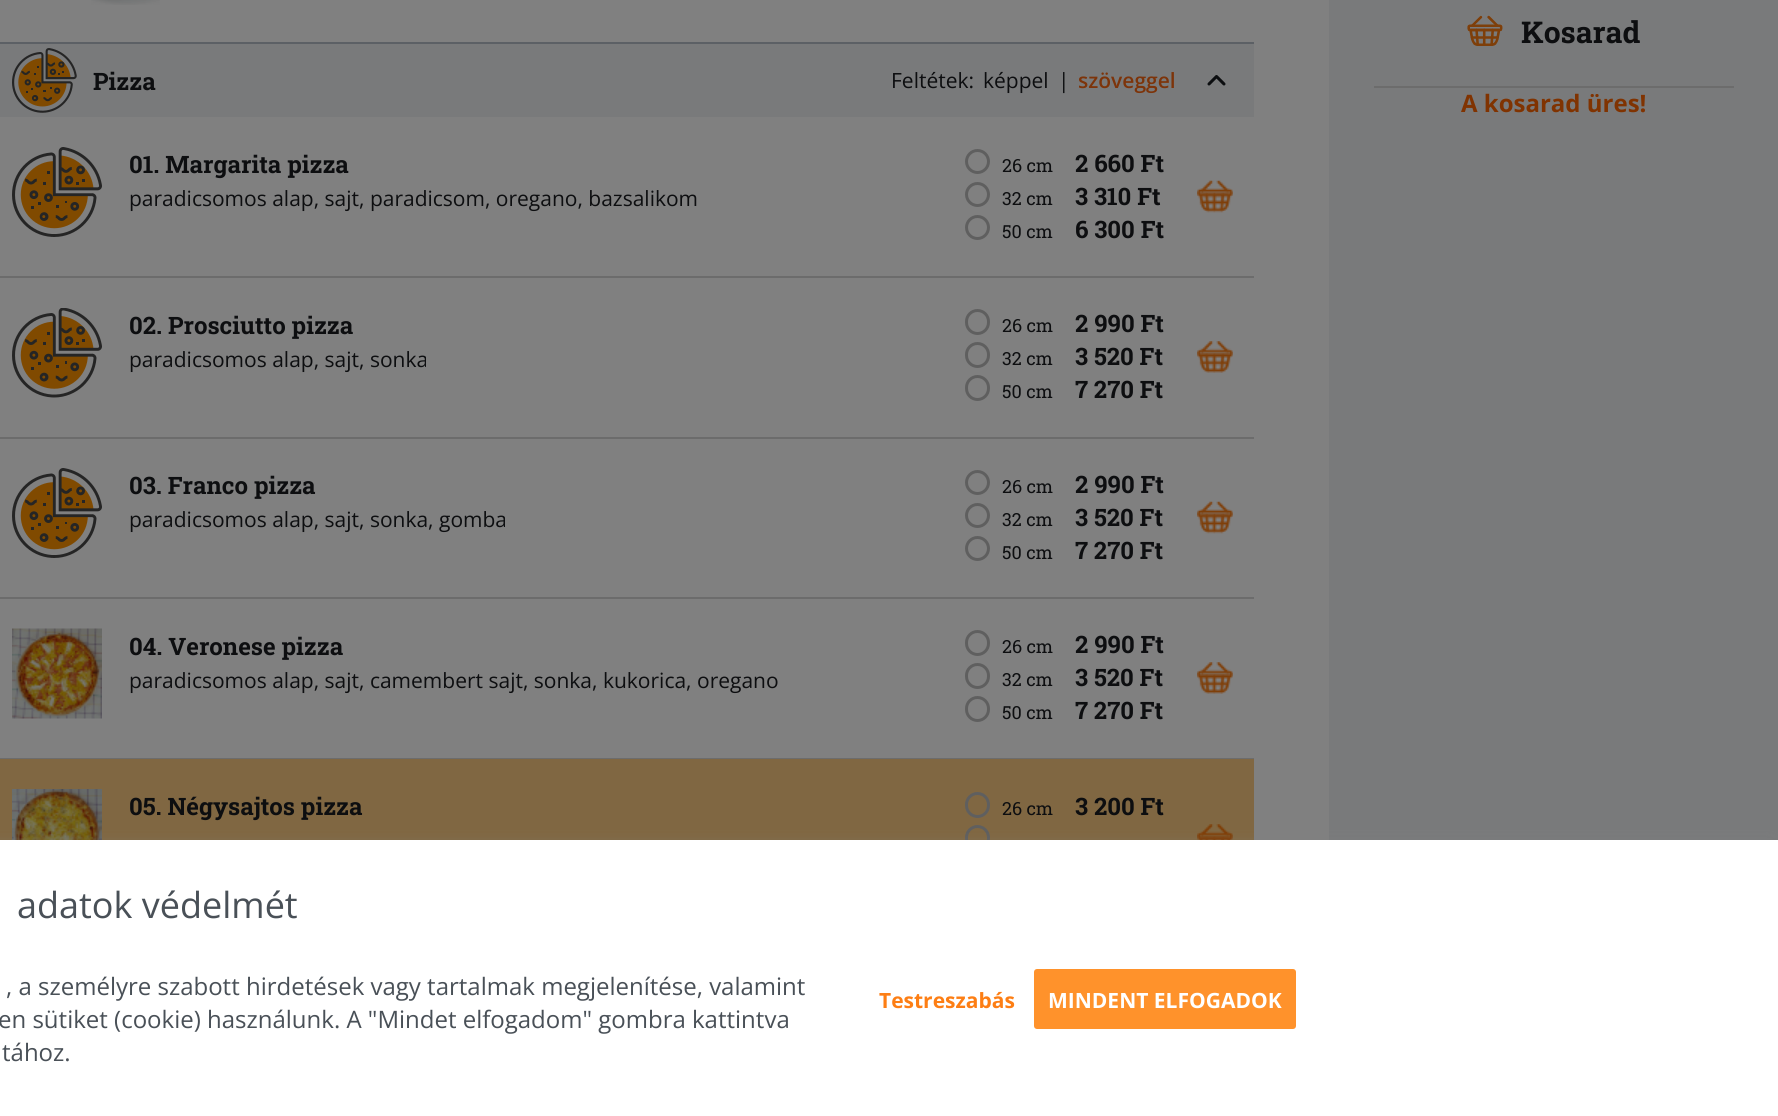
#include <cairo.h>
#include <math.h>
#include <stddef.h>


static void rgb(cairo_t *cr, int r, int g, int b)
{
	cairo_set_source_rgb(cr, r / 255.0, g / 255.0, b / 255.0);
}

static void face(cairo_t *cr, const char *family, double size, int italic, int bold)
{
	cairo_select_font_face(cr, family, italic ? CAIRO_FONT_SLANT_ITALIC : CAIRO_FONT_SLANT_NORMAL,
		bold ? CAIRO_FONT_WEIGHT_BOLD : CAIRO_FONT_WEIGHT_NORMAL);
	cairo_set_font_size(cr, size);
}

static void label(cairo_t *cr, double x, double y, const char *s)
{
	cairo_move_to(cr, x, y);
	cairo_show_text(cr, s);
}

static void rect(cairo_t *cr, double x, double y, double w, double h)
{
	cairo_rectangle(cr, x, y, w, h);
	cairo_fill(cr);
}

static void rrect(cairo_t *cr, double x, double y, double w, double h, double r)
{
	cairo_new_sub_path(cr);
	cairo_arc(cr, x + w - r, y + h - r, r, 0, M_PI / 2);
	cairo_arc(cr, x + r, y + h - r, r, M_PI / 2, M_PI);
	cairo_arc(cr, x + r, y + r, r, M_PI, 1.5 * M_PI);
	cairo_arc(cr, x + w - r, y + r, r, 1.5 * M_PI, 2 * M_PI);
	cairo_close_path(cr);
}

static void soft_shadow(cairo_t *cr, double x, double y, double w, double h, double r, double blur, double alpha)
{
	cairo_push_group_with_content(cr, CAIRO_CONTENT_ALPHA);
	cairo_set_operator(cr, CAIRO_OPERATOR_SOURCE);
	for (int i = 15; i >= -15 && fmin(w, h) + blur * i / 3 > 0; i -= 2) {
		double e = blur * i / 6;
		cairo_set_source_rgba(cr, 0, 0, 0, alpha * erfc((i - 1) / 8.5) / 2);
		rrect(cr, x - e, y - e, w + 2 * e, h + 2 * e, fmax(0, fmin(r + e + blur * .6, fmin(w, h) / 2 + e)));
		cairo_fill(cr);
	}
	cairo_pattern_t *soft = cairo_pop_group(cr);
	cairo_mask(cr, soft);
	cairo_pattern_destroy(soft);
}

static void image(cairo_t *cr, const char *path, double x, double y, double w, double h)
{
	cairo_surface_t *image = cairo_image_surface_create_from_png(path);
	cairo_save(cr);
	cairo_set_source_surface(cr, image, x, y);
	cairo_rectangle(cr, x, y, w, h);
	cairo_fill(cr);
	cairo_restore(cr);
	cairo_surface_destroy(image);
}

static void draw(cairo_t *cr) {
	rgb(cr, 128, 128, 128);
	cairo_paint(cr);
	image(cr, "image0.png", 91, 0, 69, 5);
	rgb(cr, 121, 122, 123);
	rect(cr, 0, 44, 1254, 73);
	rgb(cr, 92, 96, 101);
	rect(cr, 0, 42, 1254, 2);
	image(cr, "image1.png", 12, 48, 65, 65);
	face(cr, "Roboto Slab", 24, 0, 1);
	rgb(cr, 13, 14, 16);
	label(cr, 93, 90, "Pizza");
	face(cr, "Open Sans", 21, 0, 0);
	label(cr, 891, 88, "Feltétek:");
	label(cr, 983, 88, "képpel");
	label(cr, 1058, 88, "|");
	face(cr, "Open Sans SemiBold", 21, 0, 0);
	rgb(cr, 125, 52, 10);
	label(cr, 1078, 88, "szöveggel");
	image(cr, "image2.png", 1207, 75, 19, 11);
	rgb(cr, 108, 108, 108);
	rect(cr, 0, 276, 1254, 2);
	image(cr, "image3.png", 12, 147, 90, 90);
	face(cr, "Roboto Slab", 24, 0, 1);
	rgb(cr, 13, 14, 16);
	label(cr, 129, 173, "01. Margarita pizza");
	face(cr, "Open Sans", 21, 0, 0);
	label(cr, 129, 206, "paradicsomos alap, sajt, paradicsom, oregano, bazsalikom");
	cairo_new_path(cr);
	cairo_arc(cr, 977.5, 161.5, 11, 0, 2 * M_PI);
	rgb(cr, 95, 95, 95);
	cairo_set_line_width(cr, 3);
	cairo_stroke(cr);
	face(cr, "Roboto Slab", 18, 0, 0);
	rgb(cr, 13, 14, 16);
	label(cr, 1002, 172, "26 cm");
	face(cr, "Roboto Slab", 24, 0, 1);
	label(cr, 1075, 172, "2 660 Ft");
	cairo_new_path(cr);
	cairo_arc(cr, 977.5, 194.5, 11, 0, 2 * M_PI);
	rgb(cr, 95, 95, 95);
	cairo_stroke(cr);
	face(cr, "Roboto Slab", 18, 0, 0);
	rgb(cr, 13, 14, 16);
	label(cr, 1002, 205, "32 cm");
	face(cr, "Roboto Slab", 24, 0, 1);
	label(cr, 1075, 205, "3 310 Ft");
	cairo_new_path(cr);
	cairo_arc(cr, 977.5, 227.5, 11, 0, 2 * M_PI);
	rgb(cr, 95, 95, 95);
	cairo_stroke(cr);
	face(cr, "Roboto Slab", 18, 0, 0);
	rgb(cr, 13, 14, 16);
	label(cr, 1002, 238, "50 cm");
	face(cr, "Roboto Slab", 24, 0, 1);
	label(cr, 1075, 238, "6 300 Ft");
	image(cr, "image4.png", 1197, 180, 36, 33);
	rgb(cr, 108, 108, 108);
	rect(cr, 0, 437, 1254, 2);
	image(cr, "image5.png", 12, 308, 90, 90);
	rgb(cr, 13, 14, 16);
	label(cr, 129, 334, "02. Prosciutto pizza");
	face(cr, "Open Sans", 21, 0, 0);
	label(cr, 129, 367, "paradicsomos alap, sajt, sonka");
	rrect(cr, 966.5, 310.5, 22, 23, 11);
	rgb(cr, 95, 95, 95);
	cairo_stroke(cr);
	face(cr, "Roboto Slab", 18, 0, 0);
	rgb(cr, 13, 14, 16);
	label(cr, 1002, 332, "26 cm");
	face(cr, "Roboto Slab", 24, 0, 1);
	label(cr, 1075, 332, "2 990 Ft");
	rrect(cr, 966.5, 343.5, 22, 23, 11);
	rgb(cr, 95, 95, 95);
	cairo_stroke(cr);
	face(cr, "Roboto Slab", 18, 0, 0);
	rgb(cr, 13, 14, 16);
	label(cr, 1002, 365, "32 cm");
	face(cr, "Roboto Slab", 24, 0, 1);
	label(cr, 1075, 365, "3 520 Ft");
	rrect(cr, 966.5, 376.5, 22, 23, 11);
	rgb(cr, 95, 95, 95);
	cairo_stroke(cr);
	face(cr, "Roboto Slab", 18, 0, 0);
	rgb(cr, 13, 14, 16);
	label(cr, 1002, 398, "50 cm");
	face(cr, "Roboto Slab", 24, 0, 1);
	label(cr, 1075, 398, "7 270 Ft");
	image(cr, "image6.png", 1197, 341, 36, 32);
	rgb(cr, 108, 108, 108);
	rect(cr, 0, 597, 1254, 2);
	image(cr, "image3.png", 12, 468, 90, 90);
	rgb(cr, 13, 14, 16);
	label(cr, 129, 494, "03. Franco pizza");
	face(cr, "Open Sans", 21, 0, 0);
	label(cr, 129, 527, "paradicsomos alap, sajt, sonka, gomba");
	cairo_new_path(cr);
	cairo_arc(cr, 977.5, 482.5, 11, 0, 2 * M_PI);
	rgb(cr, 95, 95, 95);
	cairo_stroke(cr);
	face(cr, "Roboto Slab", 18, 0, 0);
	rgb(cr, 13, 14, 16);
	label(cr, 1002, 493, "26 cm");
	face(cr, "Roboto Slab", 24, 0, 1);
	label(cr, 1075, 493, "2 990 Ft");
	cairo_new_path(cr);
	cairo_arc(cr, 977.5, 515.5, 11, 0, 2 * M_PI);
	rgb(cr, 95, 95, 95);
	cairo_stroke(cr);
	face(cr, "Roboto Slab", 18, 0, 0);
	rgb(cr, 13, 14, 16);
	label(cr, 1002, 526, "32 cm");
	face(cr, "Roboto Slab", 24, 0, 1);
	label(cr, 1075, 526, "3 520 Ft");
	cairo_new_path(cr);
	cairo_arc(cr, 977.5, 548.5, 11, 0, 2 * M_PI);
	rgb(cr, 95, 95, 95);
	cairo_stroke(cr);
	face(cr, "Roboto Slab", 18, 0, 0);
	rgb(cr, 13, 14, 16);
	label(cr, 1002, 559, "50 cm");
	face(cr, "Roboto Slab", 24, 0, 1);
	label(cr, 1075, 559, "7 270 Ft");
	image(cr, "image4.png", 1197, 501, 36, 33);
	rgb(cr, 108, 108, 108);
	rect(cr, 0, 758, 1254, 1);
	image(cr, "image7.png", 12, 628, 90, 91);
	rgb(cr, 13, 14, 16);
	label(cr, 129, 655, "04. Veronese pizza");
	face(cr, "Open Sans", 21, 0, 0);
	label(cr, 129, 688, "paradicsomos alap, sajt, camembert sajt, sonka, kukorica, oregano");
	rrect(cr, 966.5, 631.5, 22, 23, 11);
	rgb(cr, 95, 95, 95);
	cairo_stroke(cr);
	face(cr, "Roboto Slab", 18, 0, 0);
	rgb(cr, 13, 14, 16);
	label(cr, 1002, 653, "26 cm");
	face(cr, "Roboto Slab", 24, 0, 1);
	label(cr, 1075, 653, "2 990 Ft");
	rrect(cr, 966.5, 664.5, 22, 23, 11);
	rgb(cr, 95, 95, 95);
	cairo_stroke(cr);
	face(cr, "Roboto Slab", 18, 0, 0);
	rgb(cr, 13, 14, 16);
	label(cr, 1002, 686, "32 cm");
	face(cr, "Roboto Slab", 24, 0, 1);
	label(cr, 1075, 686, "3 520 Ft");
	rrect(cr, 966.5, 697.5, 22, 23, 11);
	rgb(cr, 95, 95, 95);
	cairo_stroke(cr);
	face(cr, "Roboto Slab", 18, 0, 0);
	rgb(cr, 13, 14, 16);
	label(cr, 1002, 719, "50 cm");
	face(cr, "Roboto Slab", 24, 0, 1);
	label(cr, 1075, 719, "7 270 Ft");
	image(cr, "image6.png", 1197, 662, 36, 32);
	rgb(cr, 128, 103, 66);
	rect(cr, 0, 759, 1254, 81);
	image(cr, "image8.png", 12, 789, 90, 51);
	rgb(cr, 13, 14, 16);
	label(cr, 129, 815, "05. Négysajtos pizza");
	rrect(cr, 966.5, 793.5, 22, 23, 11);
	rgb(cr, 95, 95, 95);
	cairo_stroke(cr);
	face(cr, "Roboto Slab", 18, 0, 0);
	rgb(cr, 13, 14, 16);
	label(cr, 1002, 815, "26 cm");
	face(cr, "Roboto Slab", 24, 0, 1);
	label(cr, 1075, 815, "3 200 Ft");
	rrect(cr, 966.5, 826.5, 22, 23, 11);
	rgb(cr, 95, 95, 95);
	cairo_stroke(cr);
	image(cr, "image9.png", 1197, 824, 36, 16);
	rgb(cr, 121, 122, 123);
	rect(cr, 1329, 0, 449, 840);
	rgb(cr, 108, 108, 108);
	rect(cr, 1374, 86, 360, 2);
	image(cr, "image10.png", 1467, 15, 36, 31);
	face(cr, "Roboto Slab", 30, 0, 1);
	rgb(cr, 13, 14, 16);
	label(cr, 1521, 43, "Kosarad");
	face(cr, "Open Sans", 24, 0, 1);
	rgb(cr, 128, 51, 1);
	label(cr, 1461, 112, "A kosarad üres!");
	rgb(cr, 136, 136, 136);
	soft_shadow(cr, -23, 849, 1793, 258, 0, 7.5, 1);
	rgb(cr, 255, 255, 255);
	rect(cr, 0, 840, 1778, 276);
	face(cr, "Open Sans", 36, 0, 0);
	rgb(cr, 73, 80, 87);
	label(cr, 17, 918, "adatok védelmét");
	face(cr, "Open Sans", 24, 0, 0);
	label(cr, 6, 995, ", a személyre szabott hirdetések vagy tartalmak megjelenítése, valamint");
	label(cr, -2, 1028, "en sütiket (cookie) használunk. A \"Mindet elfogadom\" gombra kattintva");
	label(cr, 2, 1061, "tához.");
	face(cr, "Open Sans", 21, 0, 1);
	rgb(cr, 253, 126, 20);
	label(cr, 879, 1008, "Testreszabás");
	rgb(cr, 255, 146, 43);
	rrect(cr, 1035.5, 970.5, 259, 57, 1.5);
	cairo_fill_preserve(cr);
	cairo_stroke(cr);
	rgb(cr, 255, 255, 255);
	label(cr, 1048, 1008, "MINDENT ELFOGADOK");
}

int main(void) {
	cairo_surface_t *surface = cairo_image_surface_create(CAIRO_FORMAT_RGB24, 1778, 1116);
	cairo_t *cr = cairo_create(surface);
	cairo_font_options_t *options = cairo_font_options_create();
	cairo_font_options_set_hint_metrics(options, CAIRO_HINT_METRICS_OFF);
	cairo_font_options_set_hint_style(options, CAIRO_HINT_STYLE_NONE);
	cairo_set_font_options(cr, options);
	cairo_set_miter_limit(cr, 4);
	draw(cr);
	cairo_surface_write_to_png(surface, "render.png");
	cairo_font_options_destroy(options);
	cairo_destroy(cr);
	cairo_surface_destroy(surface);
	return 0;
}
